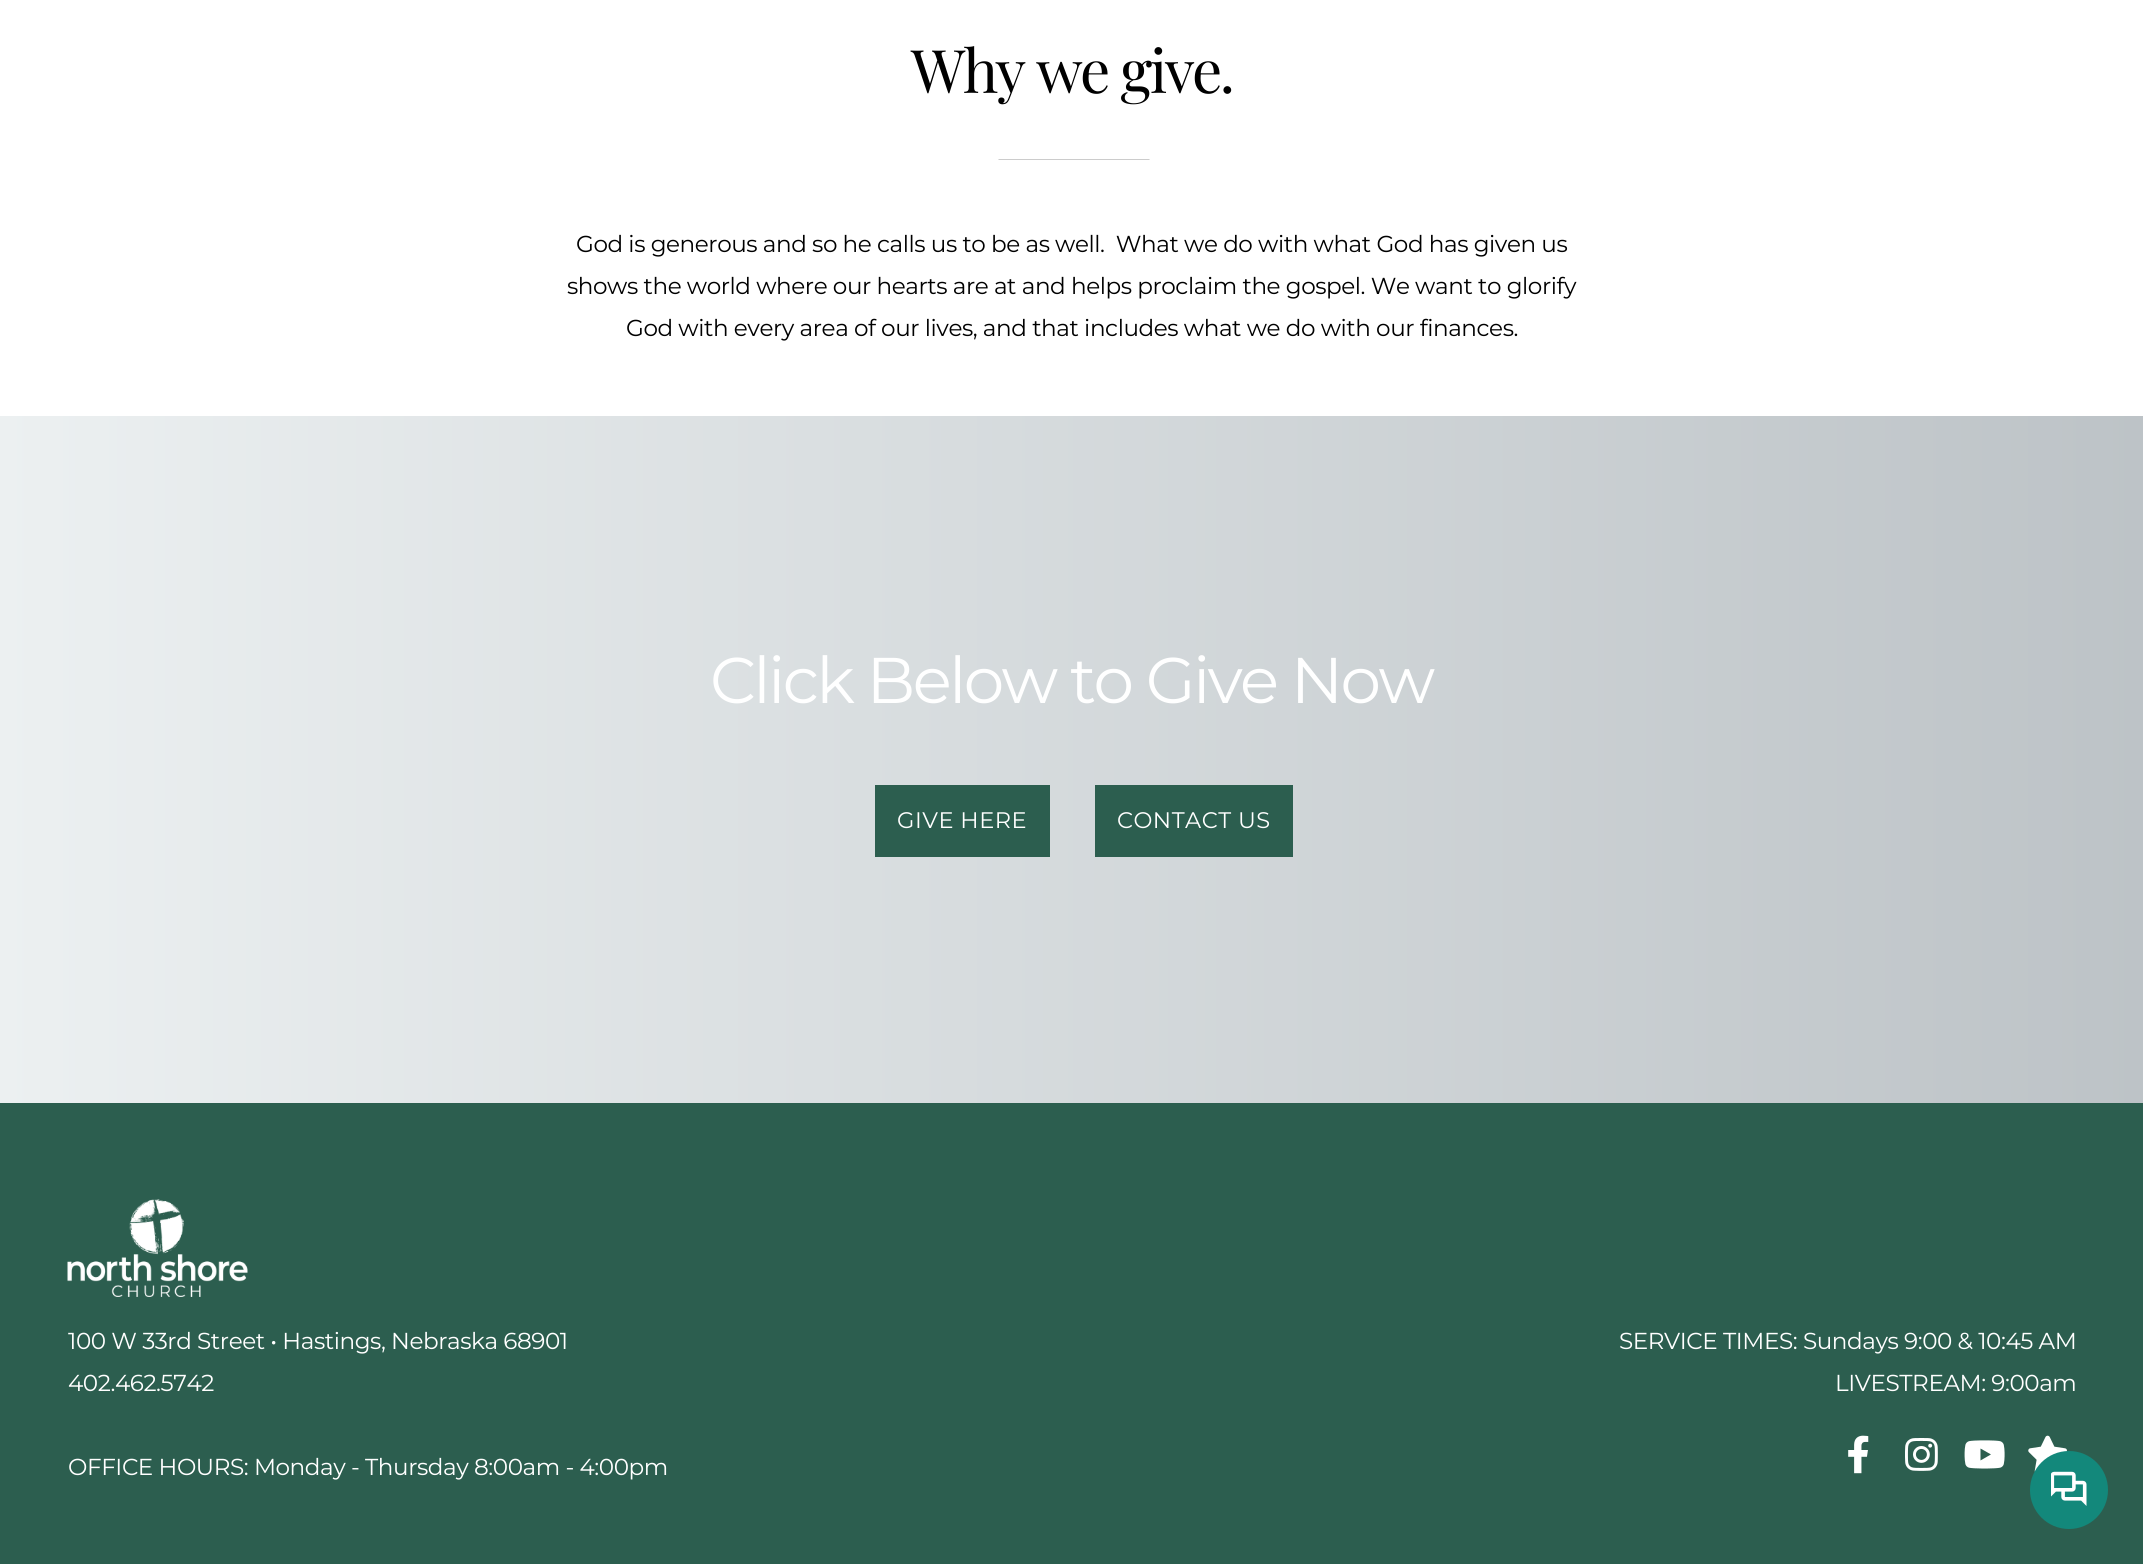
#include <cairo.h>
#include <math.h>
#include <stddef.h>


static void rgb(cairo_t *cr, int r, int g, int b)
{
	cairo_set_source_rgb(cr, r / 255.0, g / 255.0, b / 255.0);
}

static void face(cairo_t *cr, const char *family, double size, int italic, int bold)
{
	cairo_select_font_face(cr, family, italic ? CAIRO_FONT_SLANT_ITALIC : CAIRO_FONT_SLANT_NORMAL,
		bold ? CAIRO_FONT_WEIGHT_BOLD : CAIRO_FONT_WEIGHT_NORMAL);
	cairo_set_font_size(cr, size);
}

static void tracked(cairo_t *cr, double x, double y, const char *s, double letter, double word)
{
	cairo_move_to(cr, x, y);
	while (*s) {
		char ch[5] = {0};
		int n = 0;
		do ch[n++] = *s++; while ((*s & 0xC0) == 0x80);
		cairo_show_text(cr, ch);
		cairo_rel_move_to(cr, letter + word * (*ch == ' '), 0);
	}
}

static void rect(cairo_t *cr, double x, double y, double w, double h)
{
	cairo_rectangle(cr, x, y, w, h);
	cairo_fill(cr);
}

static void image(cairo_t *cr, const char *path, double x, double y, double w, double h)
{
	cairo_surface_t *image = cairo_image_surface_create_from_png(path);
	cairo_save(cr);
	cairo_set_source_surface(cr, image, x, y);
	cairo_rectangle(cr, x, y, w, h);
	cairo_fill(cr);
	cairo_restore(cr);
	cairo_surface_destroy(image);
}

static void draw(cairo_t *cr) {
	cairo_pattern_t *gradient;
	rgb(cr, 255, 255, 255);
	cairo_paint(cr);
	face(cr, "Playfair Display", 60, 0, 0);
	rgb(cr, 0, 0, 0);
	tracked(cr, 911, 93, "Why we give.", -2.4, 0);
	rgb(cr, 204, 204, 204);
	cairo_new_path(cr);
	cairo_move_to(cr, 1150, 160);
	cairo_line_to(cr, 998, 160);
	cairo_line_to(cr, 999, 159);
	cairo_line_to(cr, 1149, 159);
	cairo_close_path(cr);
	cairo_fill(cr);
	face(cr, "Montserrat", 23.1, 0, 0);
	rgb(cr, 0, 0, 0);
	tracked(cr, 576, 252, "God is generous and so he calls us to be as well.  What we do with what God has given us", -0.42, 0);
	tracked(cr, 567, 294, "shows the world where our hearts are at and helps proclaim the gospel. We want to glorify", -0.42, 0);
	tracked(cr, 626, 336, "God with every area of our lives, and that includes what we do with our finances.", -0.42, 0);
	gradient = cairo_pattern_create_linear(0, 760, 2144, 760);
	cairo_pattern_add_color_stop_rgba(gradient, 0, 0.925, 0.941, 0.945, 1);
	cairo_pattern_add_color_stop_rgba(gradient, 1, 0.741, 0.765, 0.78, 1);
	cairo_set_source(cr, gradient);
	cairo_pattern_destroy(gradient);
	rect(cr, 0, 416, 2143, 687);
	face(cr, "Montserrat", 64.5, 0, 0);
	rgb(cr, 255, 255, 255);
	tracked(cr, 710, 703, "Click Below to Give Now", -2.6, 0);
	rgb(cr, 44, 94, 79);
	rect(cr, 875, 785, 175, 72);
	face(cr, "Montserrat", 22.5, 0, 0);
	rgb(cr, 255, 255, 255);
	tracked(cr, 897, 828, "GIVE HERE", 0.5, 0);
	rgb(cr, 44, 94, 79);
	rect(cr, 1095, 785, 198, 72);
	rgb(cr, 255, 255, 255);
	tracked(cr, 1117, 828, "CONTACT US", 0.5, 0);
	rgb(cr, 44, 94, 79);
	rect(cr, 0, 1103, 2143, 461);
	image(cr, "image0.png", 67, 1199, 181, 98);
	face(cr, "Montserrat", 23.1, 0, 0);
	rgb(cr, 255, 255, 255);
	tracked(cr, 68, 1349, "100 W 33rd Street • Hastings, Nebraska 68901", -0.42, 0);
	tracked(cr, 68, 1391, "402.462.5742", -0.42, 0);
	tracked(cr, 68, 1475, "OFFICE HOURS: Monday - Thursday 8:00am - 4:00pm", -0.42, 0);
	tracked(cr, 1619, 1349, "SERVICE TIMES: Sundays 9:00 & 10:45 AM", -0.42, 0);
	tracked(cr, 1835, 1391, "LIVESTREAM: 9:00am", -0.42, 0);
	image(cr, "image1.png", 1848, 1435, 21, 39);
	image(cr, "image2.png", 1905, 1438, 33, 33);
	image(cr, "image3.png", 1964, 1440, 41, 29);
	image(cr, "image4.png", 2028, 1435, 39, 37);
	rgb(cr, 19, 136, 123);
	cairo_arc(cr, 2069, 1490, 39, 0, 2 * M_PI);
	cairo_fill(cr);
	image(cr, "image5.png", 2051, 1471, 36, 35);
}

int main(void) {
	cairo_surface_t *surface = cairo_image_surface_create(CAIRO_FORMAT_RGB24, 2143, 1564);
	cairo_t *cr = cairo_create(surface);
	cairo_font_options_t *options = cairo_font_options_create();
	cairo_font_options_set_hint_metrics(options, CAIRO_HINT_METRICS_OFF);
	cairo_font_options_set_hint_style(options, CAIRO_HINT_STYLE_NONE);
	cairo_set_font_options(cr, options);
	cairo_set_miter_limit(cr, 4);
	draw(cr);
	cairo_surface_write_to_png(surface, "render.png");
	cairo_font_options_destroy(options);
	cairo_destroy(cr);
	cairo_surface_destroy(surface);
	return 0;
}
